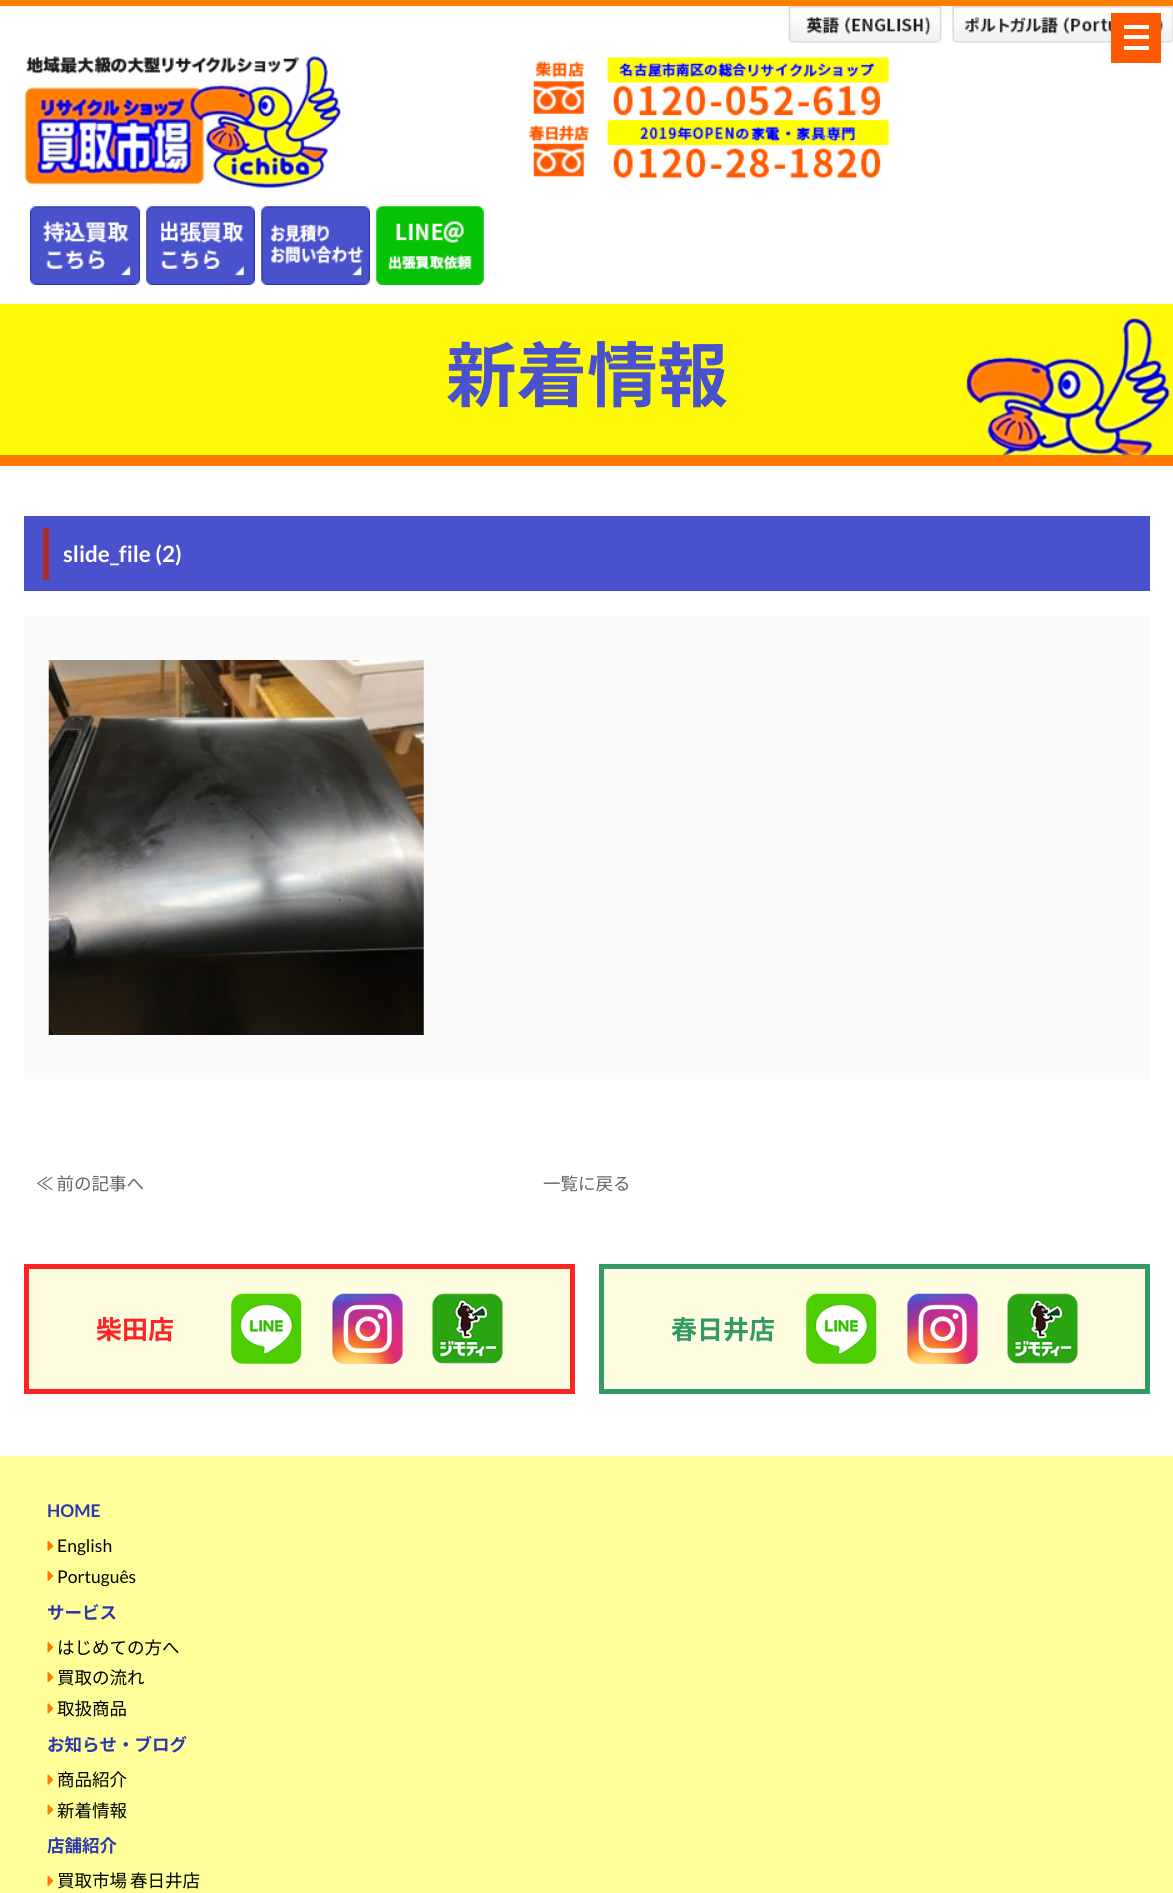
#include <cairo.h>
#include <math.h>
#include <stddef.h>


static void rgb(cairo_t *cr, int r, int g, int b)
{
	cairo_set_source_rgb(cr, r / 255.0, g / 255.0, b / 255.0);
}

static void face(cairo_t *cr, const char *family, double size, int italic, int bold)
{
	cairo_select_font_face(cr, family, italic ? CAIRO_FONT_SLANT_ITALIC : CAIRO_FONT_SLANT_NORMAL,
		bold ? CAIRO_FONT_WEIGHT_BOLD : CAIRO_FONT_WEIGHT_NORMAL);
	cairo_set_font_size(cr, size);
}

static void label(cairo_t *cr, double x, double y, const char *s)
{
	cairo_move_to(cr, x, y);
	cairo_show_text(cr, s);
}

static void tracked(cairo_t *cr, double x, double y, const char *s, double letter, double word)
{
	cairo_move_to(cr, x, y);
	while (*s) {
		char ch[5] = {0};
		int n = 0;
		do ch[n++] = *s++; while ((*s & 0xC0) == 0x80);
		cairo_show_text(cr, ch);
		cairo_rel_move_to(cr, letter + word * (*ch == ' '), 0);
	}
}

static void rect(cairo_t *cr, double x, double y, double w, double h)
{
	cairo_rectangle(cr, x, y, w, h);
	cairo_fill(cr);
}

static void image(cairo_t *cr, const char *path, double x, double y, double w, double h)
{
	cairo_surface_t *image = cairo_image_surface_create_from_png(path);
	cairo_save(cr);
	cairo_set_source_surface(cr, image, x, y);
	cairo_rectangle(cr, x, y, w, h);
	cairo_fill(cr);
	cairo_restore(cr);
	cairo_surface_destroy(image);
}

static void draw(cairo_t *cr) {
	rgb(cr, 255, 255, 255);
	cairo_paint(cr);
	rgb(cr, 255, 126, 0);
	rect(cr, 0, 0, 1173, 6);
	image(cr, "image0.png", 788, 6, 154, 37);
	image(cr, "image1.png", 952, 6, 221, 37);
	image(cr, "image2.png", 24, 56, 318, 132);
	image(cr, "image3.png", 528, 57, 361, 121);
	image(cr, "image4.png", 30, 206, 110, 79);
	image(cr, "image5.png", 146, 206, 109, 79);
	image(cr, "image6.png", 261, 206, 109, 79);
	image(cr, "image7.png", 376, 206, 108, 79);
	rgb(cr, 255, 90, 0);
	rect(cr, 1111, 13, 50, 50);
	rgb(cr, 255, 255, 255);
	rect(cr, 1124, 25, 25, 4);
	rect(cr, 1124, 35, 25, 4);
	rect(cr, 1124, 46, 25, 4);
	rgb(cr, 254, 250, 5);
	rect(cr, 0, 304, 1173, 151);
	image(cr, "image8.png", 966, 318, 205, 137);
	rgb(cr, 255, 122, 0);
	rect(cr, 0, 455, 1173, 11);
	face(cr, "Noto Sans JP", 70.5, 0, 1);
	rgb(cr, 73, 82, 204);
	label(cr, 446, 401, "新着情報");
	rect(cr, 24, 516, 1126, 75);
	rgb(cr, 166, 44, 36);
	rect(cr, 43, 528, 6, 52);
	face(cr, "Lato", 22.5, 0, 1);
	rgb(cr, 255, 255, 255);
	label(cr, 63, 562, "slide_file (2)");
	rgb(cr, 250, 250, 250);
	rect(cr, 24, 616, 1126, 463);
	image(cr, "image9.png", 48, 660, 376, 375);
	face(cr, "Noto Sans JP", 17.5, 0, 0);
	rgb(cr, 101, 101, 101);
	tracked(cr, 36, 1190, "≪ 前の記事へ", 0, -1);
	label(cr, 543, 1190, "一覧に戻る");
	rgb(cr, 255, 253, 224);
	cairo_rectangle(cr, 26.5, 1266.5, 546, 125);
	cairo_fill_preserve(cr);
	rgb(cr, 255, 36, 36);
	cairo_set_line_width(cr, 5);
	cairo_stroke(cr);
	face(cr, "Noto Sans JP", 26, 0, 1);
	label(cr, 96, 1339, "柴田店");
	image(cr, "image10.png", 231, 1293, 71, 71);
	image(cr, "image11.png", 332, 1293, 71, 71);
	image(cr, "image12.png", 432, 1293, 71, 71);
	rgb(cr, 255, 253, 224);
	cairo_rectangle(cr, 601.5, 1266.5, 546, 125);
	cairo_fill_preserve(cr);
	rgb(cr, 51, 153, 102);
	cairo_stroke(cr);
	label(cr, 671, 1339, "春日井店");
	image(cr, "image10.png", 806, 1293, 71, 71);
	image(cr, "image11.png", 907, 1293, 71, 71);
	image(cr, "image12.png", 1007, 1293, 71, 71);
	rgb(cr, 255, 255, 153);
	rect(cr, 0, 1456, 1173, 437);
	face(cr, "Lato", 17.5, 0, 1);
	rgb(cr, 43, 56, 176);
	label(cr, 47, 1517, "HOME");
	image(cr, "image13.png", 47, 1540, 7, 11);
	face(cr, "Lato", 17.5, 0, 0);
	rgb(cr, 0, 0, 0);
	label(cr, 57, 1552, "English");
	image(cr, "image13.png", 47, 1570, 7, 11);
	label(cr, 57, 1583, "Português");
	face(cr, "Noto Sans JP", 17.5, 0, 1);
	rgb(cr, 43, 56, 176);
	label(cr, 47, 1619, "サービス");
	image(cr, "image14.png", 47, 1642, 7, 11);
	face(cr, "Noto Sans JP", 17.5, 0, 0);
	rgb(cr, 0, 0, 0);
	label(cr, 57, 1654, "はじめての方へ");
	image(cr, "image14.png", 47, 1672, 7, 11);
	label(cr, 57, 1684, "買取の流れ");
	image(cr, "image15.png", 47, 1703, 7, 11);
	label(cr, 57, 1715, "取扱商品");
	face(cr, "Noto Sans JP", 17.5, 0, 1);
	rgb(cr, 43, 56, 176);
	label(cr, 47, 1751, "お知らせ・ブログ");
	image(cr, "image16.png", 47, 1774, 7, 11);
	face(cr, "Noto Sans JP", 17.5, 0, 0);
	rgb(cr, 0, 0, 0);
	label(cr, 57, 1786, "商品紹介");
	image(cr, "image16.png", 47, 1804, 7, 11);
	label(cr, 57, 1817, "新着情報");
	face(cr, "Noto Sans JP", 17.5, 0, 1);
	rgb(cr, 43, 56, 176);
	label(cr, 47, 1852, "店舗紹介");
	image(cr, "image13.png", 47, 1875, 7, 11);
	face(cr, "Noto Sans JP", 17.5, 0, 0);
	rgb(cr, 0, 0, 0);
	tracked(cr, 57, 1887, "買取市場 春日井店", 0, -1);
}

int main(void) {
	cairo_surface_t *surface = cairo_image_surface_create(CAIRO_FORMAT_RGB24, 1173, 1893);
	cairo_t *cr = cairo_create(surface);
	cairo_font_options_t *options = cairo_font_options_create();
	cairo_font_options_set_hint_metrics(options, CAIRO_HINT_METRICS_OFF);
	cairo_font_options_set_hint_style(options, CAIRO_HINT_STYLE_NONE);
	cairo_set_font_options(cr, options);
	cairo_set_miter_limit(cr, 4);
	draw(cr);
	cairo_surface_write_to_png(surface, "render.png");
	cairo_font_options_destroy(options);
	cairo_destroy(cr);
	cairo_surface_destroy(surface);
	return 0;
}
